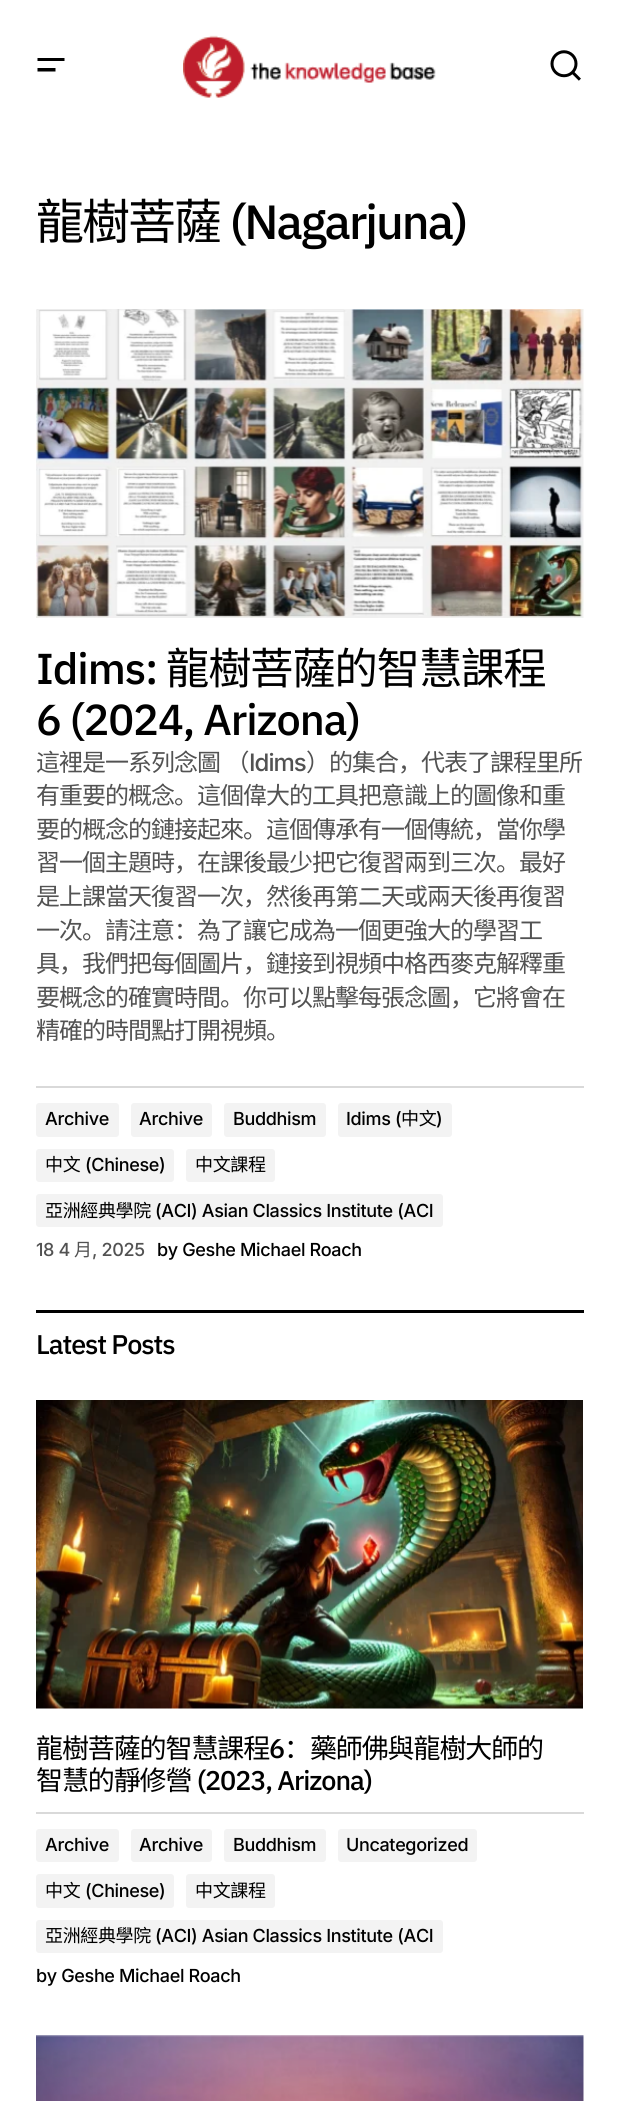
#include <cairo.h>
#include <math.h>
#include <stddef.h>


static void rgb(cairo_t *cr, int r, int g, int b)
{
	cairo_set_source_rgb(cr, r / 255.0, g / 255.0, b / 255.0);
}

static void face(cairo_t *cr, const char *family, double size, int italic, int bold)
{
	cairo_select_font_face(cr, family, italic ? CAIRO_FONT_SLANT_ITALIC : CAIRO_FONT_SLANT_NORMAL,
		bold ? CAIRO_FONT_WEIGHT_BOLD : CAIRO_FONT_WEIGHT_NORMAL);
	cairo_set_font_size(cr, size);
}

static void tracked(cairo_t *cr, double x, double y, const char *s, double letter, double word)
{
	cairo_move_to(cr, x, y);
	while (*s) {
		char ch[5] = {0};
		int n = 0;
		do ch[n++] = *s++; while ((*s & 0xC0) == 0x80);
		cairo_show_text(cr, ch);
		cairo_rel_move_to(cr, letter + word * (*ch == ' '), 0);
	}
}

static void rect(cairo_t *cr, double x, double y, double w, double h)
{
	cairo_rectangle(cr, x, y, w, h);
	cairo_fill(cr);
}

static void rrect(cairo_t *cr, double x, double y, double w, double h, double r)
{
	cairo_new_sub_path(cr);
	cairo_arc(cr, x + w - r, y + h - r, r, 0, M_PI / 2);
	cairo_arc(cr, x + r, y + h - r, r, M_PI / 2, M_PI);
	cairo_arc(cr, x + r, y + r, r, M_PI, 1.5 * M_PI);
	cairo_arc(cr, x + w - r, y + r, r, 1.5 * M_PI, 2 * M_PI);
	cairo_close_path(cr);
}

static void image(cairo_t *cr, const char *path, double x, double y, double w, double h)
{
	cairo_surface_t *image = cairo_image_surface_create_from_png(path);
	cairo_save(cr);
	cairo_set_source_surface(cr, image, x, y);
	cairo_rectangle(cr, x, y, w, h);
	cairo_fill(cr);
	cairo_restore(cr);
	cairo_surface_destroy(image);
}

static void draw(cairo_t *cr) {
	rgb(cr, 255, 255, 255);
	cairo_paint(cr);
	rgb(cr, 0, 0, 0);
	cairo_new_path(cr);
	cairo_move_to(cr, 37.5, 58);
	cairo_line_to(cr, 64.5, 58);
	cairo_line_to(cr, 64.5, 61);
	cairo_line_to(cr, 37.5, 61);
	cairo_close_path(cr);
	cairo_move_to(cr, 37.5, 68);
	cairo_line_to(cr, 55.5, 68);
	cairo_line_to(cr, 55.5, 71.5);
	cairo_line_to(cr, 37.5, 71.5);
	cairo_close_path(cr);
	cairo_fill(cr);
	image(cr, "image0.png", 183, 35, 253, 63);
	image(cr, "image1.png", 550, 50, 31, 31);
	face(cr, "Noto Sans CJK SC", 48, 0, 0);
	tracked(cr, 36, 239, "龍樹菩薩", -2, 0);
	face(cr, "IBM Plex Sans Medium", 48, 0, 0);
	tracked(cr, 230, 239, "(Nagarjuna)", -2, 0);
	image(cr, "image2.png", 36, 309, 548, 309);
	face(cr, "IBM Plex Sans Medium", 43.25, 0, 0);
	tracked(cr, 36, 684, "Idims:", -1.1, 0);
	face(cr, "Noto Sans CJK SC", 43.25, 0, 0);
	tracked(cr, 166, 684, "龍樹菩薩的智慧課程", -1.1, 0);
	face(cr, "IBM Plex Sans Medium", 43.25, 0, 0);
	tracked(cr, 36, 735, "6 (2024, Arizona)", -1.1, 0);
	face(cr, "Noto Sans CJK SC", 24, 0, 0);
	rgb(cr, 82, 82, 82);
	tracked(cr, 36, 771, "這裡是一系列念圖 （", -1, 1);
	face(cr, "Inter Medium", 24, 0, 0);
	tracked(cr, 249, 771, "Idims", -1, 0);
	face(cr, "Noto Sans CJK SC", 24, 0, 0);
	tracked(cr, 306, 771, "）的集合，代表了課程里所", -1, 0);
	tracked(cr, 36, 804, "有重要的概念。這個偉大的工具把意識上的圖像和重", -1, 0);
	tracked(cr, 36, 838, "要的概念的鏈接起來。這個傳承有一個傳統，當你學", -1, 0);
	tracked(cr, 36, 871, "習一個主題時，在課後最少把它復習兩到三次。最好", -1, 0);
	tracked(cr, 36, 905, "是上課當天復習一次，然後再第二天或兩天後再復習", -1, 0);
	tracked(cr, 36, 939, "一次。請注意：為了讓它成為一個更強大的學習工", -1, 0);
	tracked(cr, 36, 972, "具，我們把每個圖片，鏈接到視頻中格西麥克解釋重", -1, 0);
	tracked(cr, 36, 1006, "要概念的確實時間。你可以點擊每張念圖，它將會在", -1, 0);
	tracked(cr, 36, 1039, "精確的時間點打開視頻。", -1, 0);
	rgb(cr, 217, 217, 217);
	rect(cr, 36, 1086, 548, 2);
	rgb(cr, 243, 243, 243);
	rrect(cr, 36, 1103, 83, 34, 3);
	cairo_fill(cr);
	face(cr, "Inter Medium", 18, 0, 0);
	rgb(cr, 0, 0, 0);
	tracked(cr, 45, 1125, "Archive", -0.35, 0);
	rgb(cr, 243, 243, 243);
	rrect(cr, 131, 1103, 81, 34, 3);
	cairo_fill(cr);
	rgb(cr, 0, 0, 0);
	tracked(cr, 139, 1125, "Archive", -0.35, 0);
	rgb(cr, 243, 243, 243);
	rrect(cr, 224, 1103, 102, 34, 3);
	cairo_fill(cr);
	rgb(cr, 0, 0, 0);
	tracked(cr, 233, 1125, "Buddhism", -0.35, 0);
	rgb(cr, 243, 243, 243);
	rrect(cr, 338, 1103, 114, 34, 3);
	cairo_fill(cr);
	rgb(cr, 0, 0, 0);
	tracked(cr, 346, 1125, "Idims (", -0.35, 0);
	face(cr, "Noto Sans CJK SC", 18, 0, 0);
	tracked(cr, 401, 1125, "中文", -0.35, 0);
	face(cr, "Inter Medium", 18, 0, 0);
	tracked(cr, 436, 1125, ")", -0.35, 0);
	rgb(cr, 243, 243, 243);
	rrect(cr, 36, 1149, 138, 33, 3);
	cairo_fill(cr);
	face(cr, "Noto Sans CJK SC", 18, 0, 0);
	rgb(cr, 0, 0, 0);
	tracked(cr, 45, 1171, "中文", -0.35, 0);
	face(cr, "Inter Medium", 18, 0, 0);
	tracked(cr, 85, 1171, "(Chinese)", -0.35, 0);
	rgb(cr, 243, 243, 243);
	rrect(cr, 186, 1149, 89, 33, 3);
	cairo_fill(cr);
	face(cr, "Noto Sans CJK SC", 18, 0, 0);
	rgb(cr, 0, 0, 0);
	tracked(cr, 195, 1171, "中文課程", -0.35, 0);
	rgb(cr, 243, 243, 243);
	rrect(cr, 36, 1194, 407, 33, 3);
	cairo_fill(cr);
	rgb(cr, 0, 0, 0);
	tracked(cr, 45, 1217, "亞洲經典學院", -0.35, 0);
	face(cr, "Inter Medium", 18, 0, 0);
	tracked(cr, 155, 1217, "(ACI) Asian Classics Institute (ACI", -0.35, 0);
	rgb(cr, 82, 82, 82);
	tracked(cr, 36, 1256, "18 4", -0.35, 0);
	face(cr, "Noto Sans CJK SC", 18, 0, 0);
	tracked(cr, 74, 1256, "月", -0.35, 0);
	face(cr, "Inter Medium", 18, 0, 0);
	tracked(cr, 92, 1256, ", 2025", -0.35, 0);
	rgb(cr, 0, 0, 0);
	tracked(cr, 157, 1256, "by Geshe Michael Roach", -0.35, 0);
	rect(cr, 36, 1310, 548, 3);
	face(cr, "IBM Plex Sans Medium", 27, 0, 0);
	tracked(cr, 36, 1354, "Latest Posts", -1.1, 0);
	image(cr, "image3.png", 36, 1400, 547, 309);
	face(cr, "Noto Sans CJK SC", 27, 0, 0);
	tracked(cr, 36, 1758, "龍樹菩薩的智慧課程", -1.1, 0);
	face(cr, "IBM Plex Sans Medium", 27, 0, 0);
	tracked(cr, 269, 1758, "6", -1.1, 0);
	face(cr, "Noto Sans CJK SC", 27, 0, 0);
	tracked(cr, 284, 1758, "：藥師佛與龍樹大師的", -1.1, 0);
	tracked(cr, 36, 1790, "智慧的靜修營", -1.1, 0);
	face(cr, "IBM Plex Sans Medium", 27, 0, 0);
	tracked(cr, 197, 1790, "(2023, Arizona)", -1.1, 0);
	rgb(cr, 217, 217, 217);
	rect(cr, 36, 1812, 548, 2);
	rgb(cr, 243, 243, 243);
	rrect(cr, 36, 1829, 83, 33, 3);
	cairo_fill(cr);
	face(cr, "Inter Medium", 18, 0, 0);
	rgb(cr, 0, 0, 0);
	tracked(cr, 45, 1851, "Archive", -0.35, 0);
	rgb(cr, 243, 243, 243);
	rrect(cr, 131, 1829, 81, 33, 3);
	cairo_fill(cr);
	rgb(cr, 0, 0, 0);
	tracked(cr, 139, 1851, "Archive", -0.35, 0);
	rgb(cr, 243, 243, 243);
	rrect(cr, 224, 1829, 102, 33, 3);
	cairo_fill(cr);
	rgb(cr, 0, 0, 0);
	tracked(cr, 233, 1851, "Buddhism", -0.35, 0);
	rgb(cr, 243, 243, 243);
	rrect(cr, 338, 1829, 139, 33, 3);
	cairo_fill(cr);
	rgb(cr, 0, 0, 0);
	tracked(cr, 346, 1851, "Uncategorized", -0.35, 0);
	rgb(cr, 243, 243, 243);
	rrect(cr, 36, 1874, 138, 34, 3);
	cairo_fill(cr);
	face(cr, "Noto Sans CJK SC", 18, 0, 0);
	rgb(cr, 0, 0, 0);
	tracked(cr, 45, 1897, "中文", -0.35, 0);
	face(cr, "Inter Medium", 18, 0, 0);
	tracked(cr, 85, 1897, "(Chinese)", -0.35, 0);
	rgb(cr, 243, 243, 243);
	rrect(cr, 186, 1874, 89, 34, 3);
	cairo_fill(cr);
	face(cr, "Noto Sans CJK SC", 18, 0, 0);
	rgb(cr, 0, 0, 0);
	tracked(cr, 195, 1897, "中文課程", -0.35, 0);
	rgb(cr, 243, 243, 243);
	rrect(cr, 36, 1920, 407, 33, 3);
	cairo_fill(cr);
	rgb(cr, 0, 0, 0);
	tracked(cr, 45, 1942, "亞洲經典學院", -0.35, 0);
	face(cr, "Inter Medium", 18, 0, 0);
	tracked(cr, 155, 1942, "(ACI) Asian Classics Institute (ACI", -0.35, 0);
	tracked(cr, 36, 1982, "by Geshe Michael Roach", -0.35, 0);
	image(cr, "image4.png", 36, 2035, 548, 66);
}

int main(void) {
	cairo_surface_t *surface = cairo_image_surface_create(CAIRO_FORMAT_RGB24, 642, 2101);
	cairo_t *cr = cairo_create(surface);
	cairo_font_options_t *options = cairo_font_options_create();
	cairo_font_options_set_hint_metrics(options, CAIRO_HINT_METRICS_OFF);
	cairo_font_options_set_hint_style(options, CAIRO_HINT_STYLE_NONE);
	cairo_set_font_options(cr, options);
	cairo_set_miter_limit(cr, 4);
	draw(cr);
	cairo_surface_write_to_png(surface, "render.png");
	cairo_font_options_destroy(options);
	cairo_destroy(cr);
	cairo_surface_destroy(surface);
	return 0;
}
